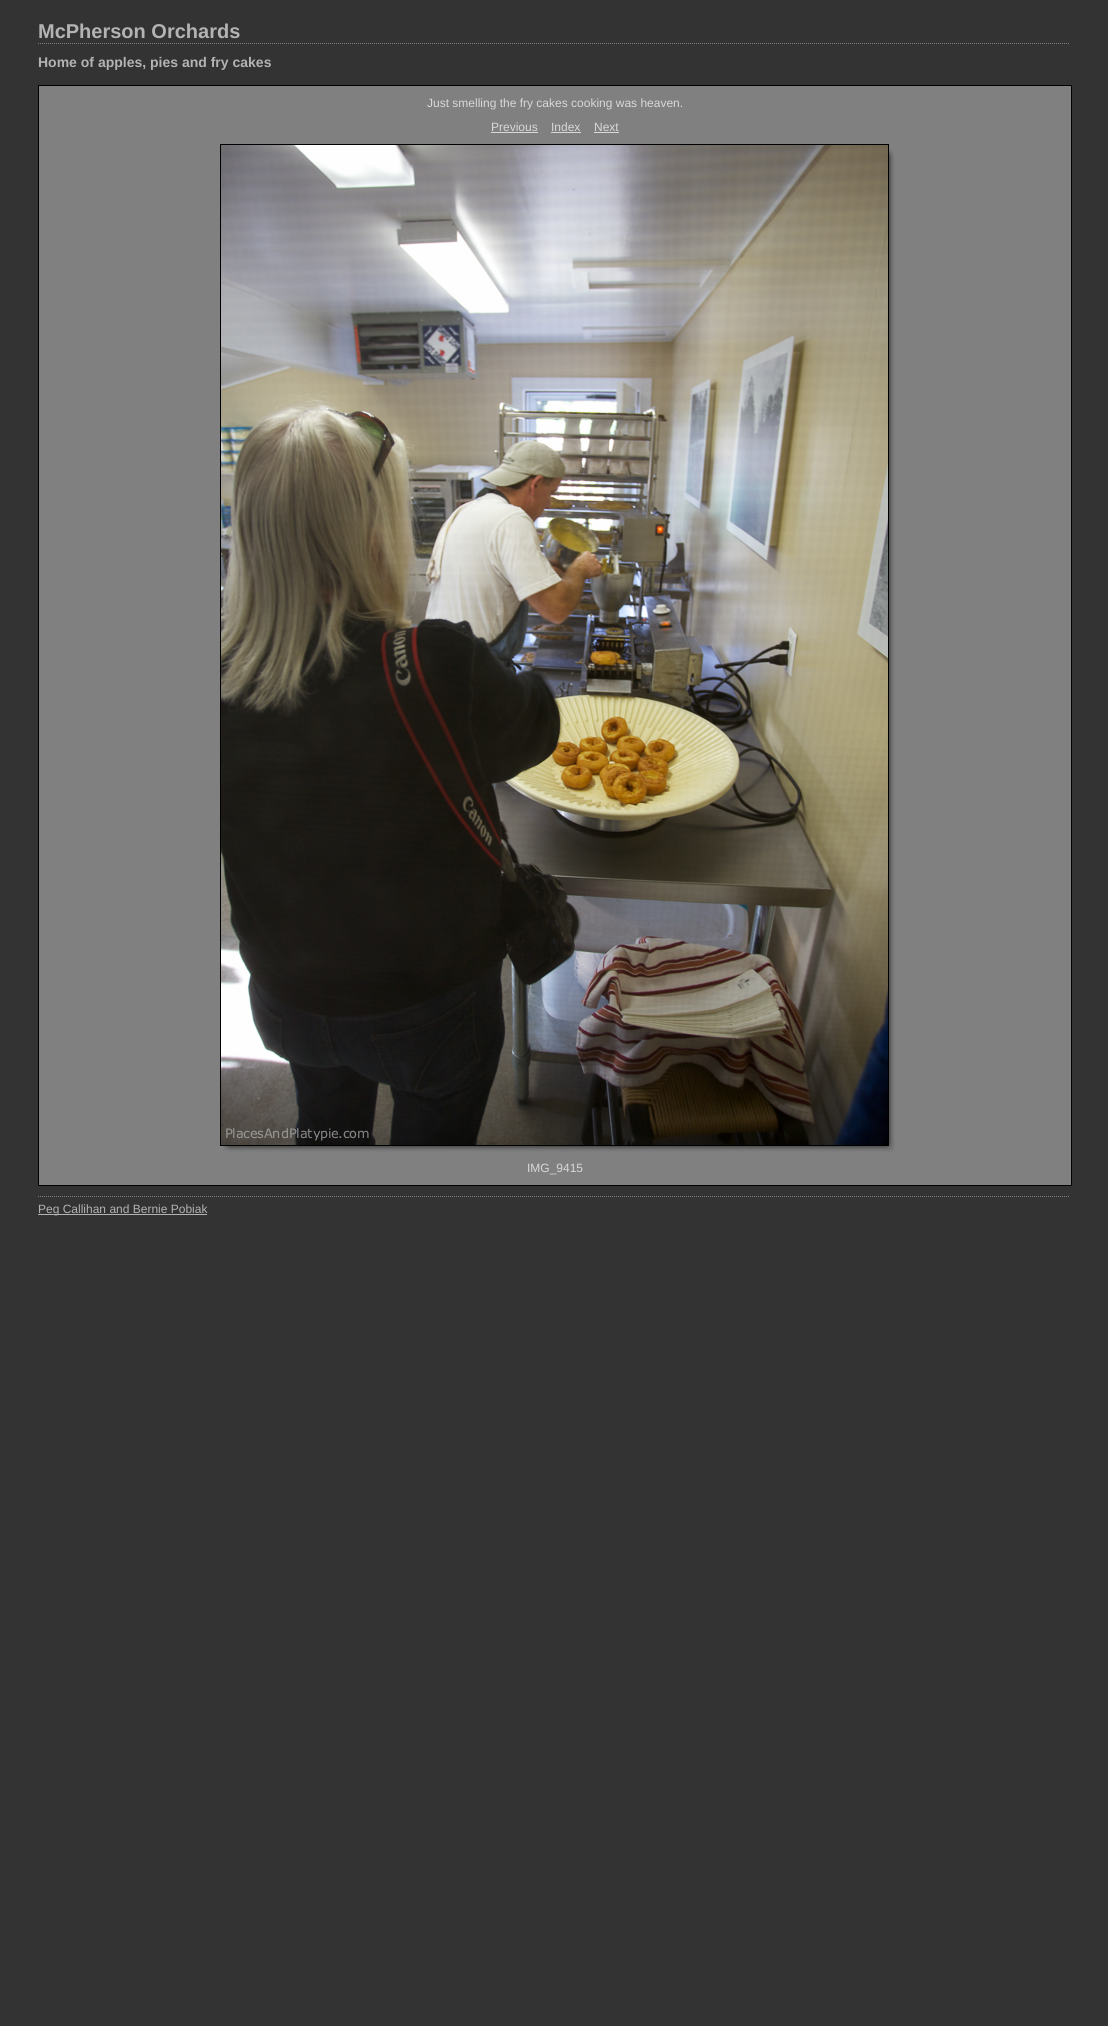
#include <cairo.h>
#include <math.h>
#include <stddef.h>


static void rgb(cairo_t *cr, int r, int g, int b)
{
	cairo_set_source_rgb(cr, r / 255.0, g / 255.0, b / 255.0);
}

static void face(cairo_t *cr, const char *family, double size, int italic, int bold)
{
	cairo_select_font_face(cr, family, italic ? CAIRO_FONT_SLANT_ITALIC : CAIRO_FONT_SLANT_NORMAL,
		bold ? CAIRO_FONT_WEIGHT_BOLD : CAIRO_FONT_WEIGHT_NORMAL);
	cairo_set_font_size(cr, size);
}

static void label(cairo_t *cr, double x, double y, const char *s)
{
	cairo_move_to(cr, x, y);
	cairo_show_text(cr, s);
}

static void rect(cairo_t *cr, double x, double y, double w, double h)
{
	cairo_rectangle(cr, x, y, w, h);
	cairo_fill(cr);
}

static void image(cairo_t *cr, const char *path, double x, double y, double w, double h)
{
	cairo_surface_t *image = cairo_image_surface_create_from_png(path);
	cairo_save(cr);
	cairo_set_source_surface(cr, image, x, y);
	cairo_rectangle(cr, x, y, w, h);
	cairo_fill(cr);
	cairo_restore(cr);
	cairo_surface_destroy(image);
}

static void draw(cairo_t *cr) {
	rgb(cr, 51, 51, 51);
	cairo_paint(cr);
	cairo_new_path(cr);
	cairo_move_to(cr, 38, 43.5);
	cairo_line_to(cr, 1070, 43.5);
	rgb(cr, 127, 127, 127);
	cairo_set_line_width(cr, 1);
	cairo_set_dash(cr, (double[]){1, 1}, 2, 0);
	cairo_stroke(cr);
	face(cr, "Liberation Sans", 20, 0, 1);
	rgb(cr, 179, 179, 179);
	label(cr, 38, 38, "McPherson Orchards");
	face(cr, "Liberation Sans", 14, 0, 1);
	label(cr, 38, 67, "Home of apples, pies and fry cakes");
	cairo_new_path(cr);
	cairo_move_to(cr, 38, 1196.5);
	cairo_line_to(cr, 1070, 1196.5);
	rgb(cr, 127, 127, 127);
	cairo_stroke(cr);
	rgb(cr, 128, 128, 128);
	cairo_rectangle(cr, 38.5, 85.5, 1033, 1100);
	cairo_fill_preserve(cr);
	rgb(cr, 1, 1, 1);
	cairo_set_dash(cr, NULL, 0, 0);
	cairo_stroke(cr);
	face(cr, "Liberation Sans", 12, 0, 0);
	rgb(cr, 216, 216, 216);
	label(cr, 427, 107, "Just smelling the fry cakes cooking was heaven.");
	label(cr, 491, 131, "Previous");
	rect(cr, 491, 132, 47, 1);
	label(cr, 551, 131, "Index");
	rect(cr, 551, 132, 30, 1);
	label(cr, 594, 131, "Next");
	rect(cr, 594, 132, 25, 1);
	image(cr, "image0.png", 230, 157, 665, 995);
	cairo_rectangle(cr, 220.5, 144.5, 668, 1001);
	rgb(cr, 0, 0, 0);
	cairo_stroke(cr);
	image(cr, "image1.png", 221, 145, 667, 1000);
	image(cr, "image2.png", 889, 149, 5, 8);
	image(cr, "image3.png", 222, 1146, 8, 5);
	rgb(cr, 216, 216, 216);
	label(cr, 527, 1172, "IMG_9415");
	rgb(cr, 179, 179, 179);
	rect(cr, 38, 1214, 169, 1);
	label(cr, 38, 1213, "Peg Callihan and Bernie Pobiak");
}

int main(void) {
	cairo_surface_t *surface = cairo_image_surface_create(CAIRO_FORMAT_RGB24, 1108, 2026);
	cairo_t *cr = cairo_create(surface);
	cairo_font_options_t *options = cairo_font_options_create();
	cairo_font_options_set_hint_metrics(options, CAIRO_HINT_METRICS_OFF);
	cairo_font_options_set_hint_style(options, CAIRO_HINT_STYLE_NONE);
	cairo_set_font_options(cr, options);
	cairo_set_miter_limit(cr, 4);
	draw(cr);
	cairo_surface_write_to_png(surface, "render.png");
	cairo_font_options_destroy(options);
	cairo_destroy(cr);
	cairo_surface_destroy(surface);
	return 0;
}
